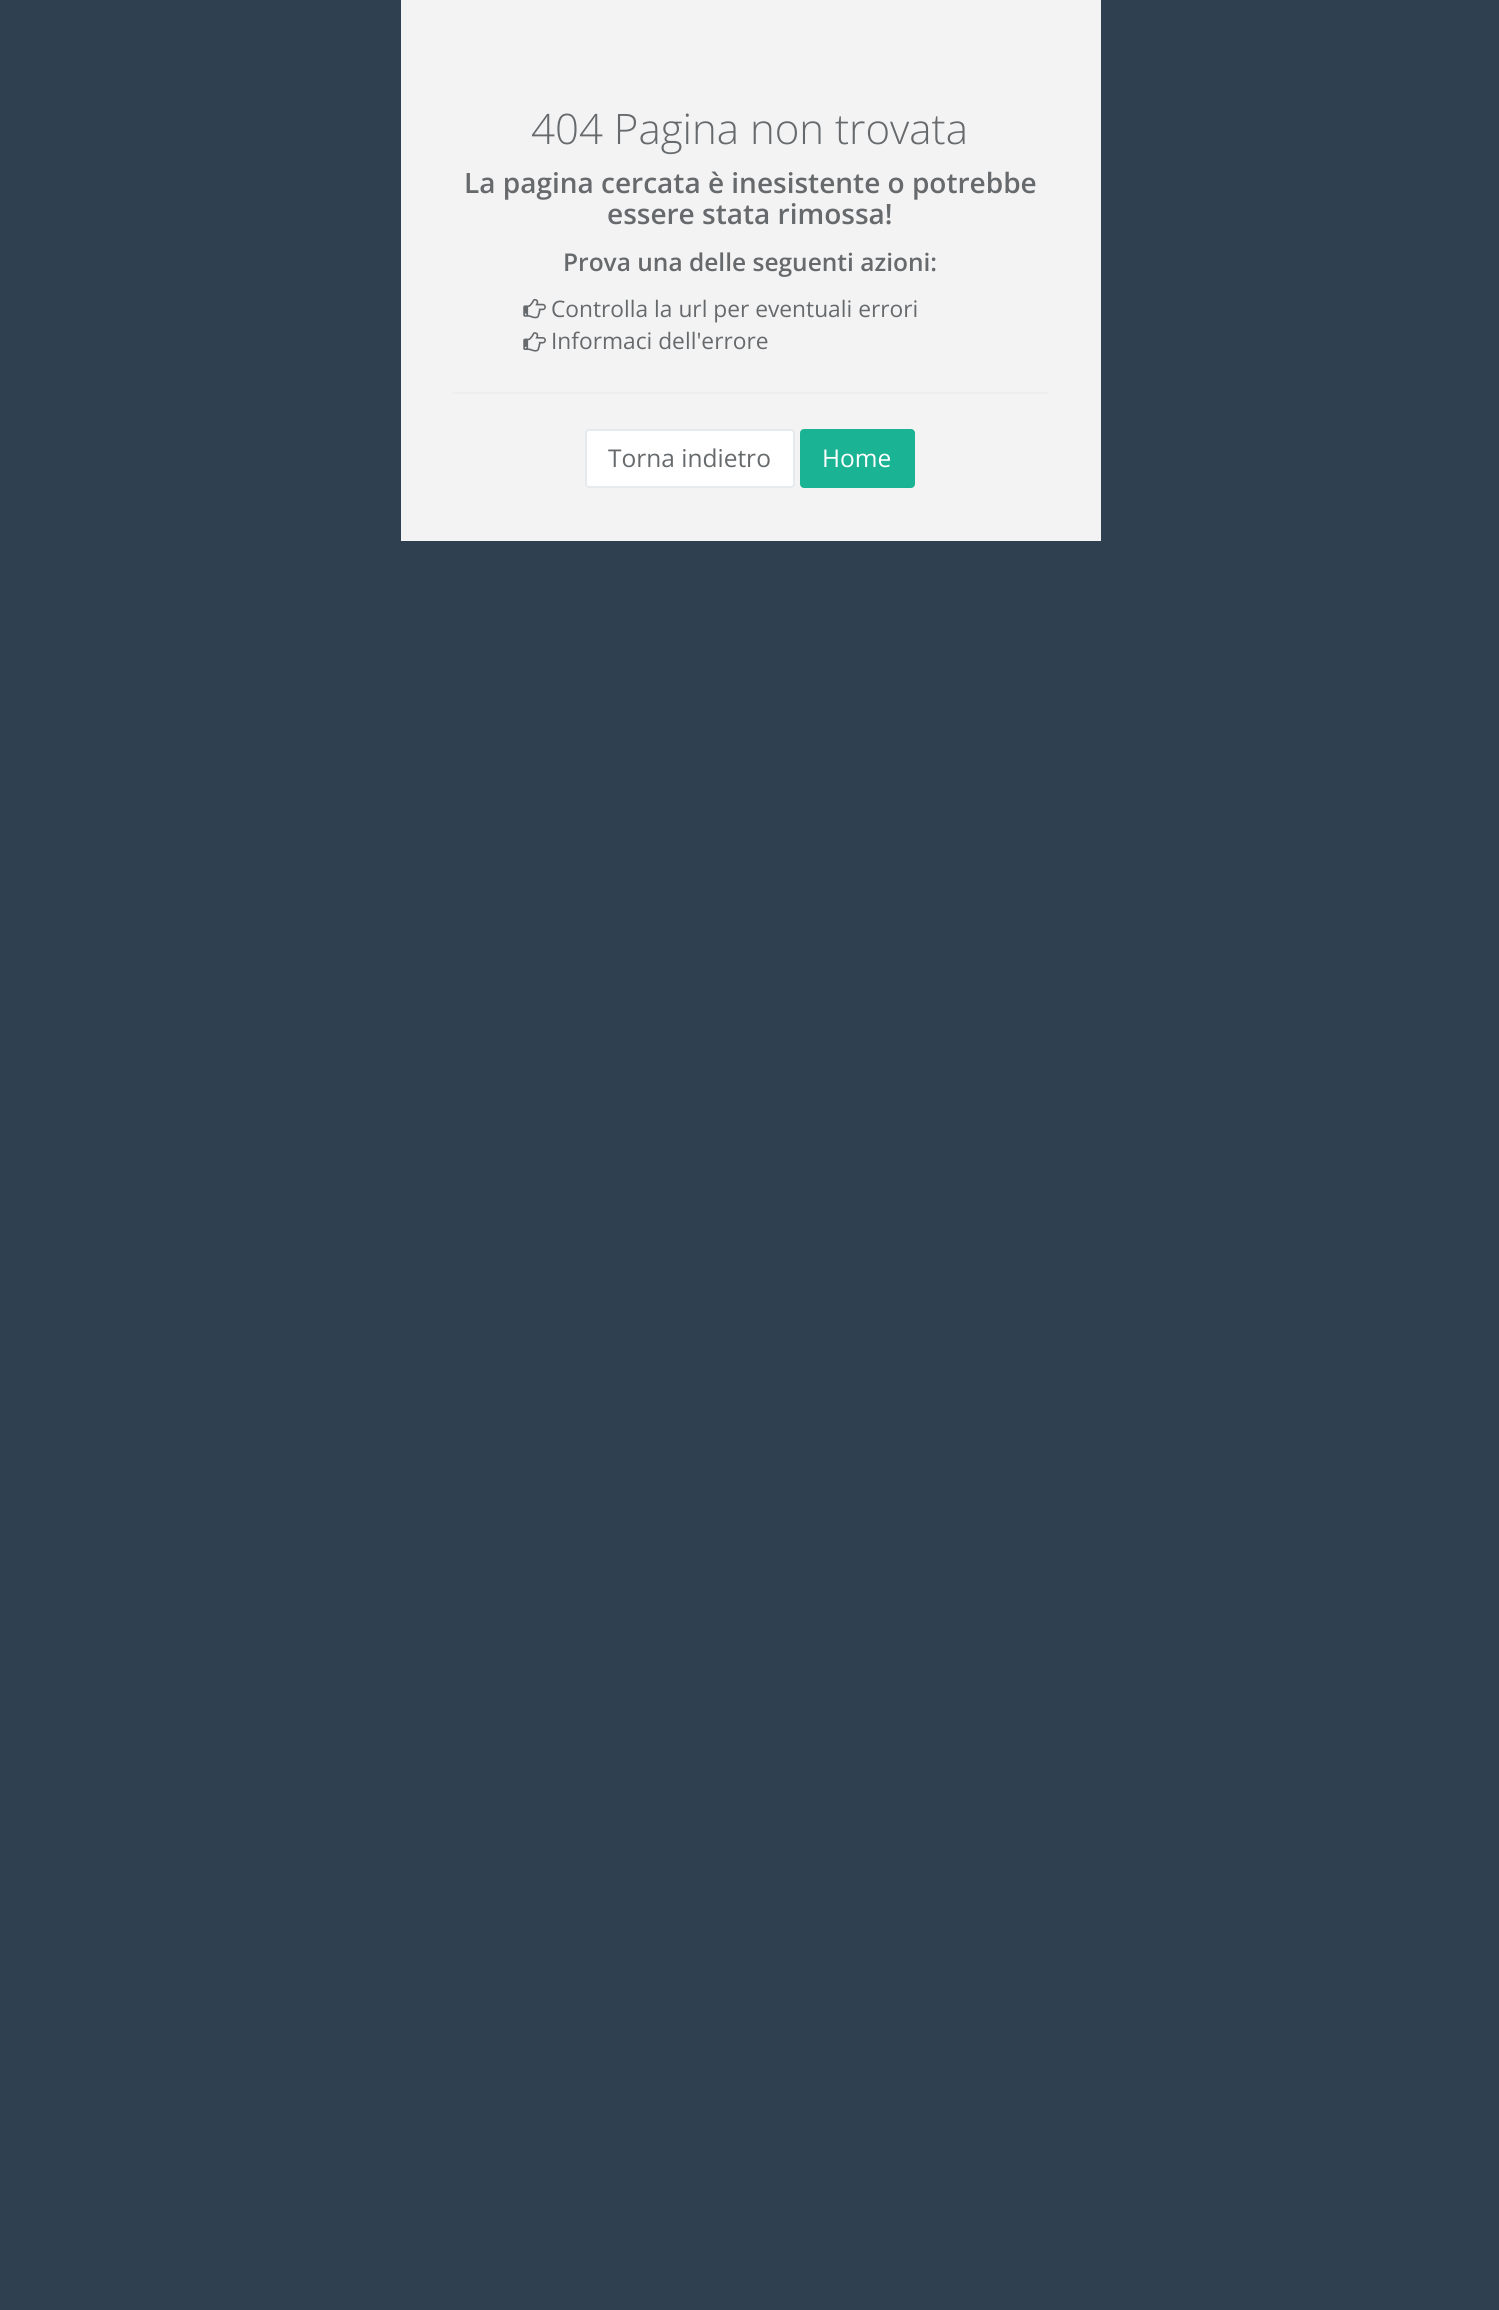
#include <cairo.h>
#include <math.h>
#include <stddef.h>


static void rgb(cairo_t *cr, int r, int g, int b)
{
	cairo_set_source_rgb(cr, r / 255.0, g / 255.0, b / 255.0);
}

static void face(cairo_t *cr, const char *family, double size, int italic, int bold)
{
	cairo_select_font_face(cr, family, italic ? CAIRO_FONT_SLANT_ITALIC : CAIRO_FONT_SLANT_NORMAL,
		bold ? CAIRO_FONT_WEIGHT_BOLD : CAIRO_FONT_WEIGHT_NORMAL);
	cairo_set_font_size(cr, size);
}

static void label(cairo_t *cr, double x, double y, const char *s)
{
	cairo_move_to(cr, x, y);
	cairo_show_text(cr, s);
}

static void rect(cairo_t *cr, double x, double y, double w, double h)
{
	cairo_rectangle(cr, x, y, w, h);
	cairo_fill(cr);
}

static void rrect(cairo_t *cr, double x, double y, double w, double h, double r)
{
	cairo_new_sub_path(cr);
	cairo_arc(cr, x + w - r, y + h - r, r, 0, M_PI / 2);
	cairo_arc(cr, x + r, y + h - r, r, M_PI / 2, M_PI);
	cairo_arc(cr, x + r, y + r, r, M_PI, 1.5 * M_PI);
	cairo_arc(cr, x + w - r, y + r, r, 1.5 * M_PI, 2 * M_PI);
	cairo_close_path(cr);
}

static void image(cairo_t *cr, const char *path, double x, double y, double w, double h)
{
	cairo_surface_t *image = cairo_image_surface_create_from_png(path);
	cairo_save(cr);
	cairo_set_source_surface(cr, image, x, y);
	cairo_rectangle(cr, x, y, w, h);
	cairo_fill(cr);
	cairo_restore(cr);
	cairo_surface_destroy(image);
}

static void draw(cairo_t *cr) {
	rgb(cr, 47, 64, 80);
	cairo_paint(cr);
	rgb(cr, 243, 243, 244);
	rect(cr, 401, 0, 700, 541);
	face(cr, "Open Sans Light", 42, 0, 0);
	rgb(cr, 103, 106, 108);
	label(cr, 531, 144, "404 Pagina non trovata");
	face(cr, "Open Sans SemiBold", 28, 0, 0);
	label(cr, 464, 193, "La pagina cercata è inesistente o potrebbe");
	label(cr, 607, 224, "essere stata rimossa!");
	face(cr, "Open Sans SemiBold", 24.5, 0, 0);
	label(cr, 563, 271, "Prova una delle seguenti azioni:");
	image(cr, "image0.png", 523, 298, 23, 21);
	face(cr, "Open Sans", 22.75, 0, 0);
	label(cr, 551, 317, "Controlla la url per eventuali errori");
	image(cr, "image1.png", 523, 332, 23, 20);
	label(cr, 551, 349, "Informaci dell'errore");
	rgb(cr, 238, 238, 238);
	rect(cr, 453, 392, 595, 2);
	rgb(cr, 255, 255, 255);
	rrect(cr, 586, 430, 208, 57, 3);
	cairo_fill_preserve(cr);
	rgb(cr, 231, 234, 236);
	cairo_stroke(cr);
	face(cr, "Open Sans", 24.5, 0, 0);
	rgb(cr, 103, 106, 108);
	label(cr, 608, 467, "Torna indietro");
	rgb(cr, 26, 179, 148);
	rrect(cr, 801, 430, 113, 57, 3);
	cairo_fill_preserve(cr);
	cairo_stroke(cr);
	rgb(cr, 255, 255, 255);
	label(cr, 822, 467, "Home");
}

int main(void) {
	cairo_surface_t *surface = cairo_image_surface_create(CAIRO_FORMAT_RGB24, 1499, 2310);
	cairo_t *cr = cairo_create(surface);
	cairo_font_options_t *options = cairo_font_options_create();
	cairo_font_options_set_hint_metrics(options, CAIRO_HINT_METRICS_OFF);
	cairo_font_options_set_hint_style(options, CAIRO_HINT_STYLE_NONE);
	cairo_set_font_options(cr, options);
	cairo_set_miter_limit(cr, 4);
	draw(cr);
	cairo_surface_write_to_png(surface, "render.png");
	cairo_font_options_destroy(options);
	cairo_destroy(cr);
	cairo_surface_destroy(surface);
	return 0;
}
